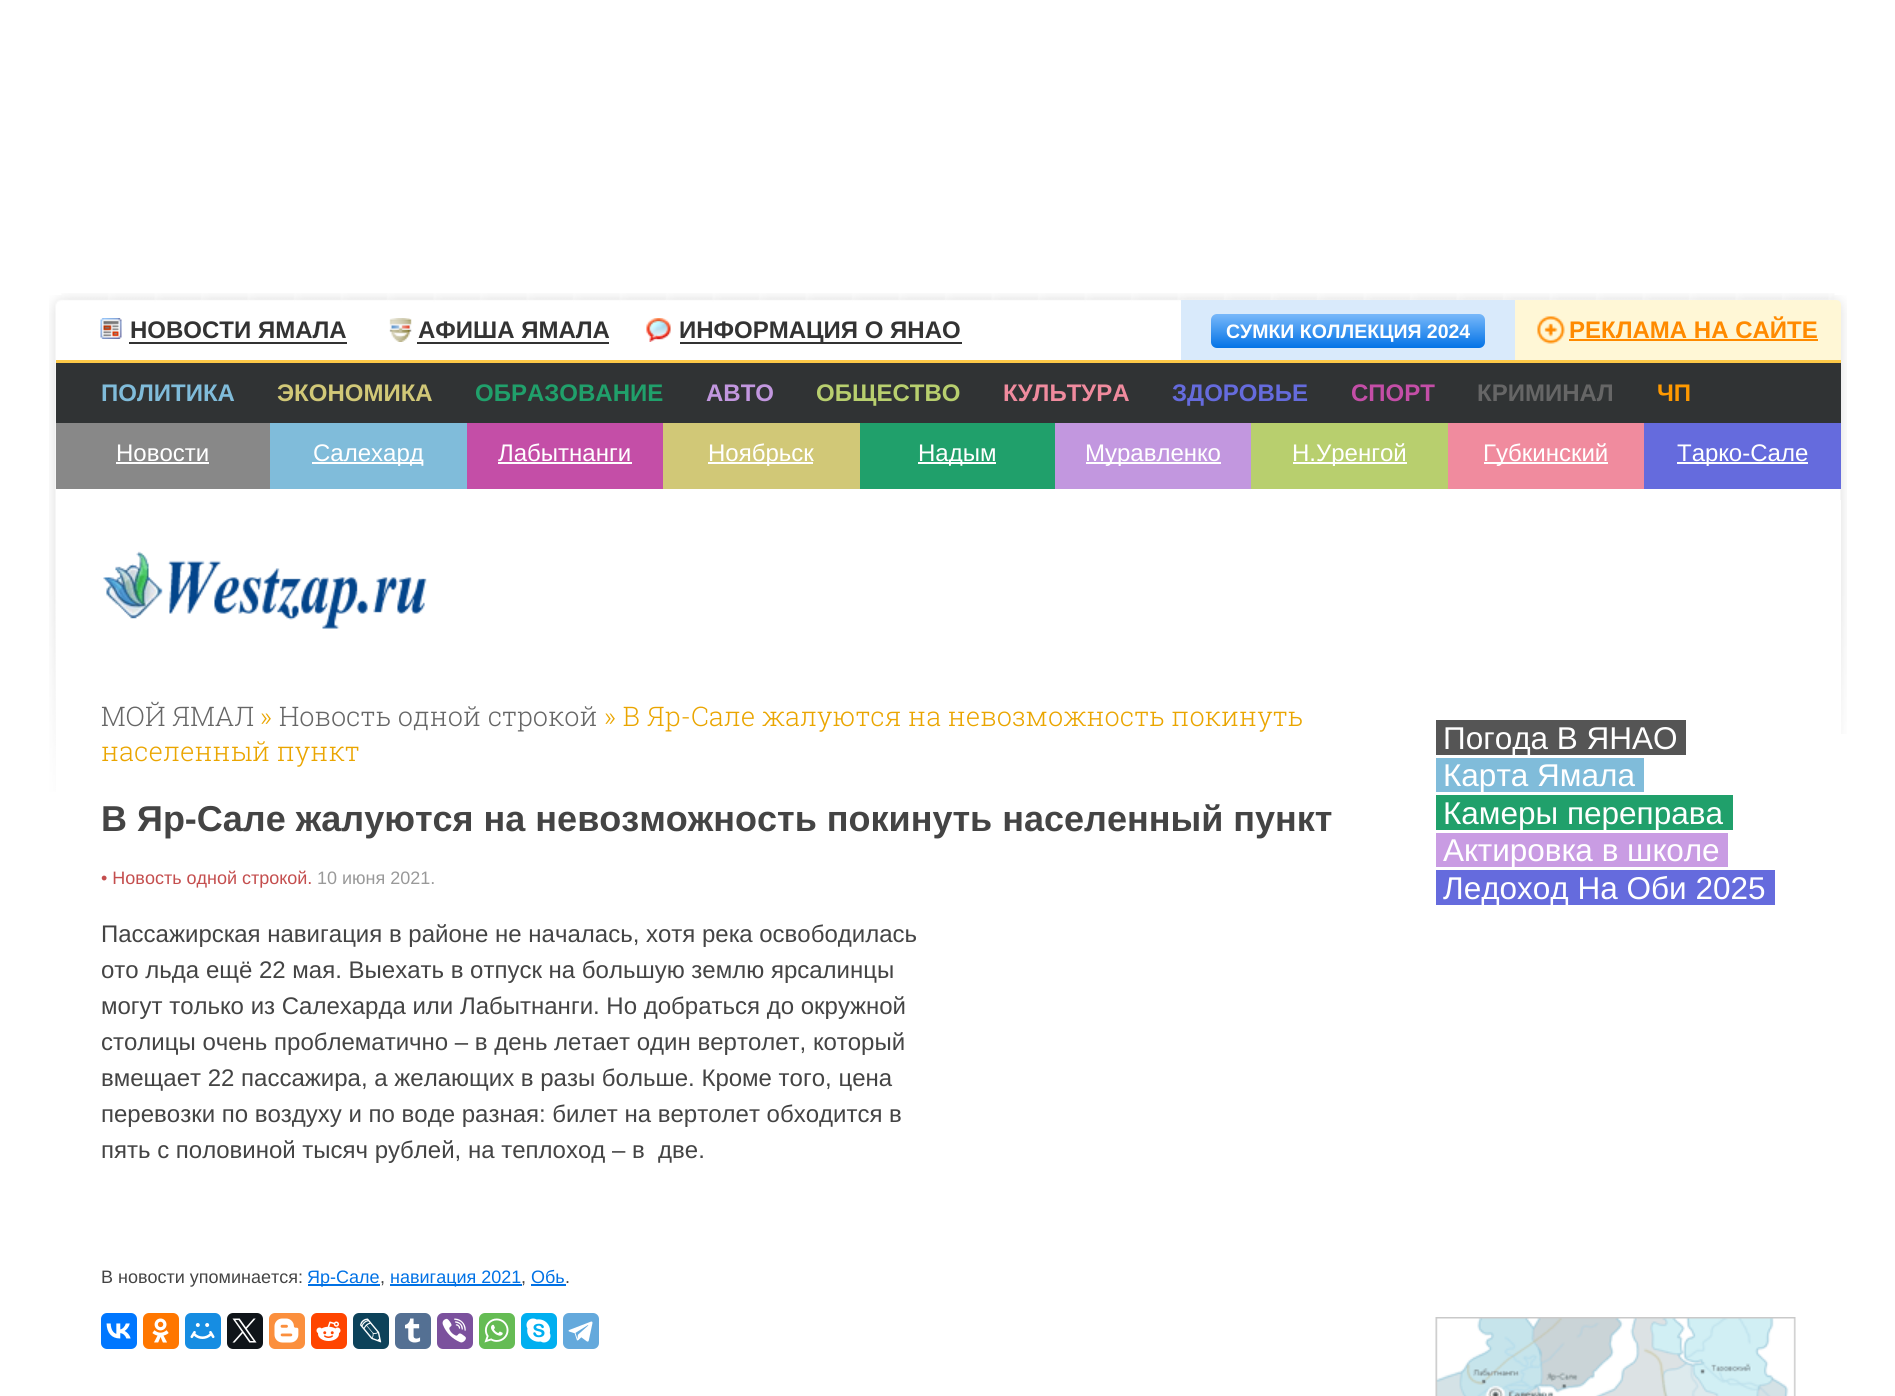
#include <cairo.h>
#include <math.h>
#include <stddef.h>


static void rgb(cairo_t *cr, int r, int g, int b)
{
	cairo_set_source_rgb(cr, r / 255.0, g / 255.0, b / 255.0);
}

static void face(cairo_t *cr, const char *family, double size, int italic, int bold)
{
	cairo_select_font_face(cr, family, italic ? CAIRO_FONT_SLANT_ITALIC : CAIRO_FONT_SLANT_NORMAL,
		bold ? CAIRO_FONT_WEIGHT_BOLD : CAIRO_FONT_WEIGHT_NORMAL);
	cairo_set_font_size(cr, size);
}

static void label(cairo_t *cr, double x, double y, const char *s)
{
	cairo_move_to(cr, x, y);
	cairo_show_text(cr, s);
}

static void rect(cairo_t *cr, double x, double y, double w, double h)
{
	cairo_rectangle(cr, x, y, w, h);
	cairo_fill(cr);
}

static void rrect(cairo_t *cr, double x, double y, double w, double h, double r)
{
	cairo_new_sub_path(cr);
	cairo_arc(cr, x + w - r, y + h - r, r, 0, M_PI / 2);
	cairo_arc(cr, x + r, y + h - r, r, M_PI / 2, M_PI);
	cairo_arc(cr, x + r, y + r, r, M_PI, 1.5 * M_PI);
	cairo_arc(cr, x + w - r, y + r, r, 1.5 * M_PI, 2 * M_PI);
	cairo_close_path(cr);
}

static void image(cairo_t *cr, const char *path, double x, double y, double w, double h)
{
	cairo_surface_t *image = cairo_image_surface_create_from_png(path);
	cairo_save(cr);
	cairo_set_source_surface(cr, image, x, y);
	cairo_rectangle(cr, x, y, w, h);
	cairo_fill(cr);
	cairo_restore(cr);
	cairo_surface_destroy(image);
}

static void draw(cairo_t *cr) {
	cairo_pattern_t *gradient;
	rgb(cr, 255, 255, 255);
	cairo_paint(cr);
	image(cr, "image0.png", 61, 293, 1774, 207);
	image(cr, "image1.png", 49, 295, 13, 497);
	image(cr, "image2.png", 1834, 295, 13, 439);
	rgb(cr, 255, 255, 255);
	rect(cr, 56, 500, 1785, 292);
	rgb(cr, 252, 200, 71);
	rect(cr, 56, 360, 1785, 3);
	image(cr, "image3.png", 100, 318, 22, 21);
	rgb(cr, 51, 51, 51);
	rect(cr, 129, 342, 218, 2);
	face(cr, "Liberation Sans", 24, 0, 1);
	label(cr, 130, 338, "НОВОСТИ ЯМАЛА");
	image(cr, "image4.png", 389, 318, 23, 24);
	rect(cr, 417, 342, 192, 2);
	label(cr, 418, 338, "АФИША ЯМАЛА");
	image(cr, "image5.png", 646, 318, 25, 24);
	rect(cr, 680, 342, 282, 2);
	label(cr, 679, 338, "ИНФОРМАЦИЯ О ЯНАО");
	rgb(cr, 217, 234, 251);
	rect(cr, 1181, 300, 334, 60);
	gradient = cairo_pattern_create_linear(1348, 314, 1348, 348);
	cairo_pattern_add_color_stop_rgba(gradient, 0, 0.471, 0.722, 0.98, 1);
	cairo_pattern_add_color_stop_rgba(gradient, 1, 0.012, 0.451, 0.902, 1);
	cairo_set_source(cr, gradient);
	cairo_pattern_destroy(gradient);
	rrect(cr, 1211, 314, 274, 34, 6);
	cairo_fill(cr);
	face(cr, "Liberation Sans", 19.5, 0, 1);
	rgb(cr, 255, 255, 255);
	label(cr, 1226, 338, "СУМКИ КОЛЛЕКЦИЯ 2024");
	rgb(cr, 255, 247, 214);
	cairo_new_path(cr);
	cairo_move_to(cr, 1515, 300);
	cairo_line_to(cr, 1836, 300);
	cairo_curve_to(cr, 1839, 300, 1841, 302, 1841, 305);
	cairo_line_to(cr, 1841, 360);
	cairo_line_to(cr, 1515, 360);
	cairo_close_path(cr);
	cairo_fill(cr);
	image(cr, "image6.png", 1537, 316, 28, 28);
	face(cr, "Liberation Sans", 24, 0, 1);
	rgb(cr, 255, 138, 0);
	label(cr, 1569, 338, "РЕКЛАМА НА САЙТЕ");
	rect(cr, 1569, 339, 249, 2);
	rgb(cr, 48, 51, 52);
	rect(cr, 56, 363, 1785, 60);
	rgb(cr, 128, 188, 218);
	label(cr, 101, 401, "ПОЛИТИКА");
	rgb(cr, 209, 200, 119);
	label(cr, 277, 401, "ЭКОНОМИКА");
	rgb(cr, 32, 160, 107);
	label(cr, 475, 401, "ОБРАЗОВАНИЕ");
	rgb(cr, 194, 151, 223);
	label(cr, 706, 401, "АВТО");
	rgb(cr, 184, 207, 110);
	label(cr, 816, 401, "ОБЩЕСТВО");
	rgb(cr, 240, 139, 158);
	label(cr, 1003, 401, "КУЛЬТУРА");
	rgb(cr, 101, 107, 221);
	label(cr, 1172, 401, "ЗДОРОВЬЕ");
	rgb(cr, 196, 78, 167);
	label(cr, 1351, 401, "СПОРТ");
	rgb(cr, 102, 102, 102);
	label(cr, 1477, 401, "КРИМИНАЛ");
	rgb(cr, 255, 153, 0);
	label(cr, 1657, 401, "ЧП");
	rgb(cr, 136, 136, 136);
	rect(cr, 56, 423, 214, 66);
	face(cr, "Liberation Sans", 24, 0, 0);
	rgb(cr, 255, 255, 255);
	label(cr, 116, 461, "Новости");
	rect(cr, 116, 462, 93, 2);
	rgb(cr, 128, 188, 218);
	rect(cr, 270, 423, 197, 66);
	rgb(cr, 255, 255, 255);
	rect(cr, 312, 462, 111, 2);
	label(cr, 313, 461, "Салехард");
	rgb(cr, 196, 78, 167);
	rect(cr, 467, 423, 196, 66);
	rgb(cr, 255, 255, 255);
	label(cr, 498, 461, "Лабытнанги");
	rect(cr, 498, 462, 134, 2);
	rgb(cr, 209, 200, 119);
	rect(cr, 663, 423, 197, 66);
	rgb(cr, 255, 255, 255);
	rect(cr, 708, 462, 105, 2);
	label(cr, 708, 461, "Ноябрьск");
	rgb(cr, 32, 160, 107);
	rect(cr, 860, 423, 195, 66);
	rgb(cr, 255, 255, 255);
	rect(cr, 918, 462, 78, 2);
	label(cr, 918, 461, "Надым");
	rgb(cr, 194, 151, 223);
	rect(cr, 1055, 423, 196, 66);
	rgb(cr, 255, 255, 255);
	rect(cr, 1086, 462, 135, 2);
	label(cr, 1085, 461, "Муравленко");
	rgb(cr, 184, 207, 110);
	rect(cr, 1251, 423, 197, 66);
	rgb(cr, 255, 255, 255);
	rect(cr, 1293, 462, 114, 2);
	label(cr, 1292, 461, "Н.Уренгой");
	rgb(cr, 240, 139, 158);
	rect(cr, 1448, 423, 196, 66);
	rgb(cr, 255, 255, 255);
	rect(cr, 1484, 462, 124, 2);
	label(cr, 1483, 461, "Губкинский");
	rgb(cr, 101, 107, 221);
	rect(cr, 1644, 423, 197, 66);
	rgb(cr, 255, 255, 255);
	rect(cr, 1677, 462, 131, 2);
	label(cr, 1677, 461, "Тарко-Сале");
	image(cr, "image7.png", 103, 551, 324, 78);
	face(cr, "Roboto Slab Light", 27, 0, 0);
	rgb(cr, 102, 102, 102);
	label(cr, 101, 726, "МОЙ ЯМАЛ");
	rgb(cr, 234, 165, 0);
	label(cr, 260, 726, "»");
	rgb(cr, 102, 102, 102);
	label(cr, 279, 726, "Новость одной строкой");
	rgb(cr, 234, 165, 0);
	label(cr, 604, 726, "» В Яр-Сале жалуются на невозможность покинуть");
	label(cr, 101, 761, "населенный пункт");
	face(cr, "Liberation Sans", 36, 0, 1);
	rgb(cr, 68, 68, 68);
	label(cr, 101, 831, "В Яр-Сале жалуются на невозможность покинуть населенный пункт");
	face(cr, "Liberation Sans", 18, 0, 0);
	rgb(cr, 196, 78, 78);
	label(cr, 101, 884, "• Новость одной строкой.");
	rgb(cr, 153, 153, 153);
	label(cr, 317, 884, "10 июня 2021.");
	face(cr, "Liberation Sans", 24, 0, 0);
	rgb(cr, 68, 68, 68);
	label(cr, 101, 942, "Пассажирская навигация в районе не началась, хотя река освободилась");
	label(cr, 101, 978, "ото льда ещё 22 мая. Выехать в отпуск на большую землю ярсалинцы");
	label(cr, 101, 1014, "могут только из Салехарда или Лабытнанги. Но добраться до окружной");
	label(cr, 101, 1050, "столицы очень проблематично – в день летает один вертолет, который");
	label(cr, 101, 1086, "вмещает 22 пассажира, а желающих в разы больше. Кроме того, цена");
	label(cr, 101, 1122, "перевозки по воздуху и по воде разная: билет на вертолет обходится в");
	label(cr, 101, 1158, "пять с половиной тысяч рублей, на теплоход – в  две.");
	face(cr, "Liberation Sans", 18, 0, 0);
	label(cr, 101, 1283, "В новости упоминается:");
	rgb(cr, 0, 113, 229);
	rect(cr, 308, 1284, 72, 2);
	label(cr, 307, 1283, "Яр-Сале");
	rgb(cr, 68, 68, 68);
	label(cr, 380, 1283, ",");
	rgb(cr, 0, 113, 229);
	rect(cr, 390, 1284, 132, 2);
	label(cr, 390, 1283, "навигация 2021");
	rgb(cr, 68, 68, 68);
	label(cr, 521, 1283, ",");
	rgb(cr, 0, 113, 229);
	label(cr, 531, 1283, "Обь");
	rect(cr, 531, 1284, 35, 2);
	rgb(cr, 68, 68, 68);
	label(cr, 565, 1283, ".");
	rgb(cr, 0, 119, 255);
	rrect(cr, 101, 1313, 36, 36, 6);
	cairo_fill(cr);
	image(cr, "image8.png", 106, 1323, 25, 16);
	rgb(cr, 255, 119, 0);
	rrect(cr, 143, 1313, 36, 36, 6);
	cairo_fill(cr);
	image(cr, "image9.png", 152, 1318, 17, 25);
	rgb(cr, 22, 141, 226);
	rrect(cr, 185, 1313, 36, 36, 6);
	cairo_fill(cr);
	image(cr, "image10.png", 190, 1323, 25, 16);
	rgb(cr, 15, 20, 25);
	rrect(cr, 227, 1313, 36, 36, 6);
	cairo_fill(cr);
	image(cr, "image11.png", 232, 1318, 25, 25);
	rgb(cr, 251, 143, 61);
	rrect(cr, 269, 1313, 36, 36, 6);
	cairo_fill(cr);
	image(cr, "image12.png", 274, 1318, 25, 25);
	rgb(cr, 255, 69, 0);
	rrect(cr, 311, 1313, 36, 36, 6);
	cairo_fill(cr);
	image(cr, "image13.png", 316, 1321, 25, 20);
	rgb(cr, 13, 66, 90);
	rrect(cr, 353, 1313, 36, 36, 6);
	cairo_fill(cr);
	image(cr, "image14.png", 360, 1318, 22, 25);
	rgb(cr, 84, 112, 147);
	rrect(cr, 395, 1313, 36, 36, 6);
	cairo_fill(cr);
	image(cr, "image15.png", 405, 1318, 16, 25);
	rgb(cr, 123, 81, 157);
	rrect(cr, 437, 1313, 36, 36, 6);
	cairo_fill(cr);
	image(cr, "image16.png", 442, 1318, 24, 25);
	rgb(cr, 101, 188, 84);
	rrect(cr, 479, 1313, 36, 36, 6);
	cairo_fill(cr);
	image(cr, "image17.png", 484, 1318, 25, 25);
	rgb(cr, 0, 175, 240);
	rrect(cr, 521, 1313, 36, 36, 6);
	cairo_fill(cr);
	image(cr, "image18.png", 526, 1318, 25, 25);
	rgb(cr, 100, 169, 220);
	rrect(cr, 563, 1313, 36, 36, 6);
	cairo_fill(cr);
	image(cr, "image19.png", 568, 1321, 25, 21);
	rgb(cr, 85, 85, 85);
	rect(cr, 1436, 720, 250, 35);
	face(cr, "Liberation Sans", 31.5, 0, 0);
	rgb(cr, 255, 255, 255);
	label(cr, 1443, 749, "Погода В ЯНАО");
	rgb(cr, 128, 188, 218);
	rect(cr, 1436, 758, 208, 34);
	rgb(cr, 255, 255, 255);
	label(cr, 1443, 786, "Карта Ямала");
	rgb(cr, 32, 160, 107);
	rect(cr, 1436, 795, 297, 35);
	rgb(cr, 255, 255, 255);
	label(cr, 1443, 824, "Камеры переправа");
	rgb(cr, 201, 156, 227);
	rect(cr, 1436, 833, 292, 34);
	rgb(cr, 255, 255, 255);
	label(cr, 1443, 861, "Актировка в школе");
	rgb(cr, 101, 107, 221);
	rect(cr, 1436, 870, 339, 35);
	rgb(cr, 255, 255, 255);
	label(cr, 1443, 899, "Ледоход На Оби 2025");
	image(cr, "image20.png", 1435, 1317, 361, 79);
}

int main(void) {
	cairo_surface_t *surface = cairo_image_surface_create(CAIRO_FORMAT_RGB24, 1895, 1396);
	cairo_t *cr = cairo_create(surface);
	cairo_font_options_t *options = cairo_font_options_create();
	cairo_font_options_set_hint_metrics(options, CAIRO_HINT_METRICS_OFF);
	cairo_font_options_set_hint_style(options, CAIRO_HINT_STYLE_NONE);
	cairo_set_font_options(cr, options);
	cairo_set_miter_limit(cr, 4);
	draw(cr);
	cairo_surface_write_to_png(surface, "render.png");
	cairo_font_options_destroy(options);
	cairo_destroy(cr);
	cairo_surface_destroy(surface);
	return 0;
}
